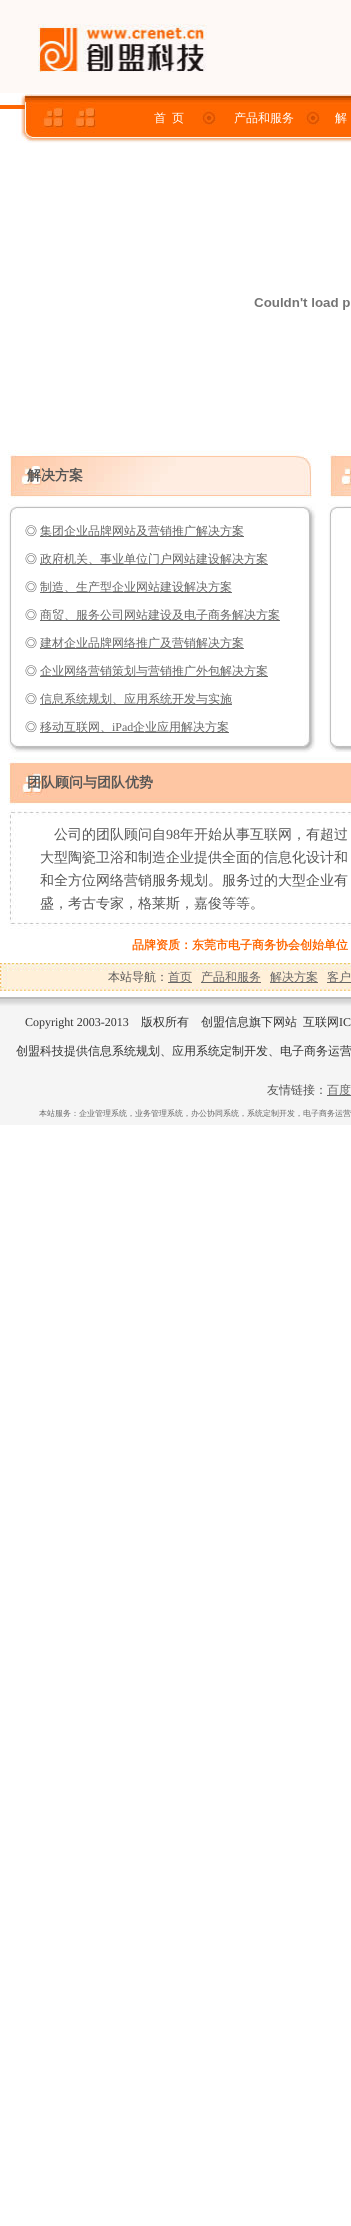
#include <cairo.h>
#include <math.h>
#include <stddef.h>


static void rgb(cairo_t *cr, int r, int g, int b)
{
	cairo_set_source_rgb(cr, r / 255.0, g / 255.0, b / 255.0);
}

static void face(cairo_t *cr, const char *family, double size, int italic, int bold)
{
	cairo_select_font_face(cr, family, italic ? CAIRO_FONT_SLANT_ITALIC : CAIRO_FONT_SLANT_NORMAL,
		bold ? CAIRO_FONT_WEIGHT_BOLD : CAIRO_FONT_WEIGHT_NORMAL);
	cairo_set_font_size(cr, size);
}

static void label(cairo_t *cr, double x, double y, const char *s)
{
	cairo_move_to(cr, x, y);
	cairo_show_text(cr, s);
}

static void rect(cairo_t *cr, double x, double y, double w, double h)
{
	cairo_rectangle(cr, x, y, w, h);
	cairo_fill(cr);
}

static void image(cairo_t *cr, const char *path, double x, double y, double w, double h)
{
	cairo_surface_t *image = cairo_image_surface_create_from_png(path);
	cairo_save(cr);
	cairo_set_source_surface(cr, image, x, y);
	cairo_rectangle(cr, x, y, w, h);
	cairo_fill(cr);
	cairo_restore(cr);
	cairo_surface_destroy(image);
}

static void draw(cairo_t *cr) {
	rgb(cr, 255, 255, 255);
	cairo_paint(cr);
	rgb(cr, 254, 249, 246);
	rect(cr, 0, 0, 351, 5);
	rect(cr, 0, 5, 351, 88);
	image(cr, "image0.png", 38, 24, 169, 48);
	image(cr, "image1.png", 0, 93, 351, 50);
	face(cr, "WenQuanYi Zen Hei Medium", 12, 0, 0);
	rgb(cr, 255, 255, 255);
	label(cr, 154, 122, "首");
	label(cr, 172, 122, "页");
	label(cr, 234, 122, "产品和服务");
	label(cr, 335, 122, "解");
	image(cr, "image2.png", 254, 298, 96, 12);
	image(cr, "image3.png", 8, 450, 304, 48);
	face(cr, "WenQuanYi Zen Hei", 14, 0, 1);
	rgb(cr, 85, 85, 85);
	label(cr, 27, 480, "解决方案");
	image(cr, "image4.png", 328, 450, 23, 48);
	image(cr, "image5.png", 8, 503, 308, 250);
	face(cr, "WenQuanYi Zen Hei Medium", 12, 0, 0);
	label(cr, 25, 535, "◎");
	rgb(cr, 102, 102, 102);
	rect(cr, 40, 536, 204, 1);
	label(cr, 40, 535, "集团企业品牌网站及营销推广解决方案");
	rgb(cr, 85, 85, 85);
	label(cr, 25, 563, "◎");
	rgb(cr, 102, 102, 102);
	rect(cr, 40, 564, 228, 1);
	label(cr, 40, 563, "政府机关、事业单位门户网站建设解决方案");
	rgb(cr, 85, 85, 85);
	label(cr, 25, 591, "◎");
	rgb(cr, 102, 102, 102);
	rect(cr, 40, 592, 192, 1);
	label(cr, 40, 591, "制造、生产型企业网站建设解决方案");
	rgb(cr, 85, 85, 85);
	label(cr, 25, 619, "◎");
	rgb(cr, 102, 102, 102);
	rect(cr, 40, 620, 240, 1);
	label(cr, 40, 619, "商贸、服务公司网站建设及电子商务解决方案");
	rgb(cr, 85, 85, 85);
	label(cr, 25, 647, "◎");
	rgb(cr, 102, 102, 102);
	rect(cr, 40, 648, 204, 1);
	label(cr, 40, 647, "建材企业品牌网络推广及营销解决方案");
	rgb(cr, 85, 85, 85);
	label(cr, 25, 675, "◎");
	rgb(cr, 102, 102, 102);
	rect(cr, 40, 676, 228, 1);
	label(cr, 40, 675, "企业网络营销策划与营销推广外包解决方案");
	rgb(cr, 85, 85, 85);
	label(cr, 25, 703, "◎");
	rgb(cr, 102, 102, 102);
	rect(cr, 40, 704, 192, 1);
	label(cr, 40, 703, "信息系统规划、应用系统开发与实施");
	rgb(cr, 85, 85, 85);
	label(cr, 25, 731, "◎");
	rgb(cr, 102, 102, 102);
	rect(cr, 40, 732, 189, 1);
	label(cr, 40, 731, "移动互联网、");
	face(cr, "Liberation Serif", 12, 0, 0);
	label(cr, 112, 731, "iPad");
	face(cr, "WenQuanYi Zen Hei Medium", 12, 0, 0);
	label(cr, 133, 731, "企业应用解决方案");
	image(cr, "image6.png", 328, 503, 23, 249);
	image(cr, "image7.png", 8, 757, 343, 48);
	face(cr, "WenQuanYi Zen Hei", 14, 0, 1);
	rgb(cr, 85, 85, 85);
	label(cr, 27, 787, "团队顾问与团队优势");
	image(cr, "image8.png", 8, 809, 343, 120);
	face(cr, "WenQuanYi Zen Hei Medium", 14, 0, 0);
	label(cr, 54, 839, "公司的团队顾问自");
	face(cr, "Liberation Serif", 14, 0, 0);
	label(cr, 166, 839, "98");
	face(cr, "WenQuanYi Zen Hei Medium", 14, 0, 0);
	label(cr, 180, 839, "年开始从事互联网，有超过");
	label(cr, 40, 862, "大型陶瓷卫浴和制造企业提供全面的信息化设计和");
	label(cr, 40, 885, "和全方位网络营销服务规划。服务过的大型企业有");
	label(cr, 40, 908, "盛，考古专家，格莱斯，嘉俊等等。");
	face(cr, "WenQuanYi Zen Hei", 12, 0, 1);
	rgb(cr, 255, 102, 0);
	label(cr, 132, 949, "品牌资质：东莞市电子商务协会创始单位");
	image(cr, "image9.png", 0, 963, 351, 28);
	face(cr, "WenQuanYi Zen Hei Medium", 12, 0, 0);
	rgb(cr, 85, 85, 85);
	label(cr, 108, 981, "本站导航：");
	rgb(cr, 102, 102, 102);
	rect(cr, 168, 982, 24, 1);
	label(cr, 168, 981, "首页");
	rect(cr, 201, 982, 60, 1);
	label(cr, 201, 981, "产品和服务");
	rect(cr, 270, 982, 48, 1);
	label(cr, 270, 981, "解决方案");
	rect(cr, 327, 982, 24, 1);
	label(cr, 327, 981, "客户");
	rgb(cr, 187, 187, 187);
	rect(cr, 0, 997, 351, 2);
	rgb(cr, 245, 245, 245);
	rect(cr, 0, 1006, 351, 119);
	image(cr, "image10.png", 0, 999, 351, 7);
	face(cr, "Liberation Serif", 12, 0, 0);
	rgb(cr, 51, 51, 51);
	label(cr, 25, 1026, "Copyright 2003-2013");
	face(cr, "WenQuanYi Zen Hei Medium", 12, 0, 0);
	label(cr, 141, 1026, "版权所有　创盟信息旗下网站");
	label(cr, 303, 1026, "互联网");
	face(cr, "Liberation Serif", 12, 0, 0);
	label(cr, 339, 1026, "IC");
	face(cr, "WenQuanYi Zen Hei Medium", 12, 0, 0);
	label(cr, 16, 1055, "创盟科技提供信息系统规划、应用系统定制开发、电子商务运营");
	rgb(cr, 85, 85, 85);
	label(cr, 267, 1094, "友情链接：");
	rgb(cr, 102, 102, 102);
	rect(cr, 327, 1095, 24, 1);
	label(cr, 327, 1094, "百度");
	face(cr, "WenQuanYi Zen Hei Medium", 8, 0, 0);
	label(cr, 39, 1116, "本站服务：企业管理系统，业务管理系统，办公协同系统，系统定制开发，电子商务运营");
}

int main(void) {
	cairo_surface_t *surface = cairo_image_surface_create(CAIRO_FORMAT_RGB24, 351, 2226);
	cairo_t *cr = cairo_create(surface);
	cairo_font_options_t *options = cairo_font_options_create();
	cairo_font_options_set_hint_metrics(options, CAIRO_HINT_METRICS_OFF);
	cairo_font_options_set_hint_style(options, CAIRO_HINT_STYLE_NONE);
	cairo_set_font_options(cr, options);
	cairo_set_miter_limit(cr, 4);
	draw(cr);
	cairo_surface_write_to_png(surface, "render.png");
	cairo_font_options_destroy(options);
	cairo_destroy(cr);
	cairo_surface_destroy(surface);
	return 0;
}
